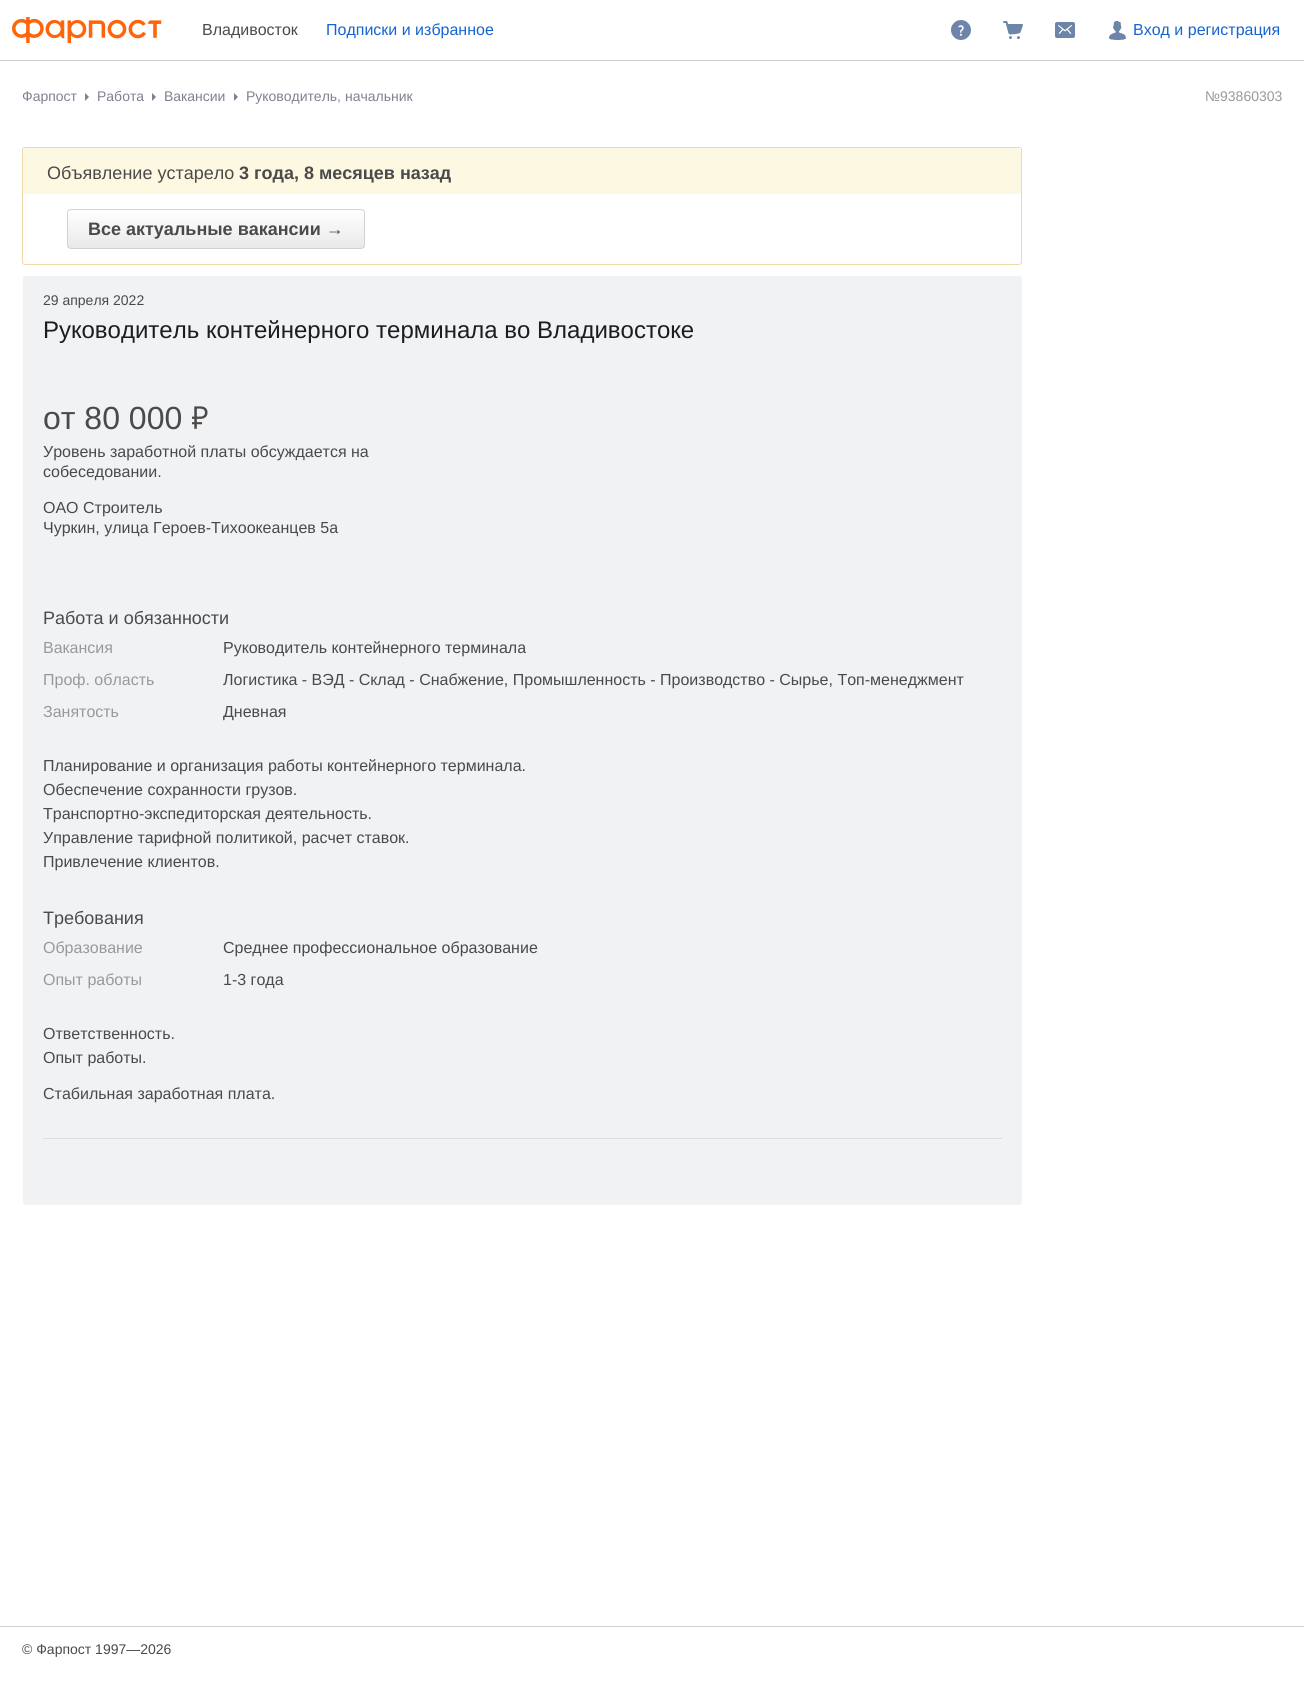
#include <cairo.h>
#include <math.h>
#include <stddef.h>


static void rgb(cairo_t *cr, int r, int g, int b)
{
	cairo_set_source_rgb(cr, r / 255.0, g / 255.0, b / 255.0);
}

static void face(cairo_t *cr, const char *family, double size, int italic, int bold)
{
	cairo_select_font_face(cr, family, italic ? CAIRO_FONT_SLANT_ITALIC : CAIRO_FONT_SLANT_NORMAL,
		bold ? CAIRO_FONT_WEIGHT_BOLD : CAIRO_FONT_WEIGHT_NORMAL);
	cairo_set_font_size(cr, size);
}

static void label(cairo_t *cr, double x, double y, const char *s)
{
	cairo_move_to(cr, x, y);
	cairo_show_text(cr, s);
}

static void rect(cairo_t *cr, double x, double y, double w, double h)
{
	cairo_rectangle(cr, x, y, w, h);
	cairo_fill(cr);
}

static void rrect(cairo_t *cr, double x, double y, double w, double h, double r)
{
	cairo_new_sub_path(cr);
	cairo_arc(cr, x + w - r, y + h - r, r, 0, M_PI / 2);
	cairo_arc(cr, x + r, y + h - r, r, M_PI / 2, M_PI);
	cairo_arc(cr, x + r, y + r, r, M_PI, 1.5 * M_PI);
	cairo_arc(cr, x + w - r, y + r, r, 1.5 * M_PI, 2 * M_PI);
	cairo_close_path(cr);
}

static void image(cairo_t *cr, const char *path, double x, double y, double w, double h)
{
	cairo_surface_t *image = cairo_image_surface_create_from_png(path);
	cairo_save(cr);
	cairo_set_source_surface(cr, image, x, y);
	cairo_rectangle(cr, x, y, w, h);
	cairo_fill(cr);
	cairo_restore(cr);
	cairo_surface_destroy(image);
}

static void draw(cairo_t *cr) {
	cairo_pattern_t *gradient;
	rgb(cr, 255, 255, 255);
	cairo_paint(cr);
	rgb(cr, 208, 209, 216);
	rect(cr, 0, 60, 1304, 1);
	image(cr, "image0.png", 12, 17, 150, 26);
	face(cr, "Liberation Sans", 16, 0, 0);
	rgb(cr, 74, 74, 74);
	label(cr, 202, 35, "Владивосток");
	rgb(cr, 21, 100, 212);
	label(cr, 326, 35, "Подписки и избранное");
	image(cr, "image1.png", 951, 20, 20, 20);
	image(cr, "image2.png", 1003, 21, 20, 18);
	image(cr, "image3.png", 1055, 22, 20, 16);
	image(cr, "image4.png", 1109, 21, 17, 19);
	label(cr, 1133, 35, "Вход и регистрация");
	face(cr, "Liberation Sans", 14, 0, 0);
	rgb(cr, 126, 129, 147);
	label(cr, 22, 101, "Фарпост");
	cairo_new_path(cr);
	cairo_move_to(cr, 85, 101);
	cairo_line_to(cr, 85, 93);
	cairo_line_to(cr, 89, 97);
	cairo_close_path(cr);
	cairo_fill(cr);
	label(cr, 97, 101, "Работа");
	cairo_new_path(cr);
	cairo_move_to(cr, 152, 101);
	cairo_line_to(cr, 152, 93);
	cairo_line_to(cr, 156, 97);
	cairo_close_path(cr);
	cairo_fill(cr);
	label(cr, 164, 101, "Вакансии");
	cairo_new_path(cr);
	cairo_move_to(cr, 234, 101);
	cairo_line_to(cr, 234, 93);
	cairo_line_to(cr, 238, 97);
	cairo_close_path(cr);
	cairo_fill(cr);
	label(cr, 246, 101, "Руководитель, начальник");
	rgb(cr, 153, 153, 153);
	label(cr, 1205, 101, "№93860303");
	rrect(cr, 22.5, 147.5, 999, 117, 2.5);
	rgb(cr, 240, 216, 169);
	cairo_set_line_width(cr, 1);
	cairo_stroke(cr);
	rgb(cr, 252, 248, 226);
	cairo_new_path(cr);
	cairo_move_to(cr, 28, 148);
	cairo_line_to(cr, 1016, 148);
	cairo_curve_to(cr, 1019, 148, 1021, 150, 1021, 153);
	cairo_line_to(cr, 1021, 194);
	cairo_line_to(cr, 23, 194);
	cairo_line_to(cr, 23, 153);
	cairo_curve_to(cr, 23, 150, 25, 148, 28, 148);
	cairo_close_path(cr);
	cairo_fill(cr);
	face(cr, "Liberation Sans", 18, 0, 0);
	rgb(cr, 74, 74, 74);
	label(cr, 47, 179, "Объявление устарело");
	face(cr, "Liberation Sans", 18, 0, 1);
	label(cr, 239, 179, "3 года, 8 месяцев назад");
	cairo_save(cr);
	rrect(cr, 67, 209, 298, 40, 4);
	cairo_clip(cr);
	gradient = cairo_pattern_create_linear(216, 210, 216, 248);
	cairo_pattern_add_color_stop_rgba(gradient, 0, 1, 1, 1, 1);
	cairo_pattern_add_color_stop_rgba(gradient, 1, 0.914, 0.914, 0.914, 1);
	cairo_set_source(cr, gradient);
	cairo_pattern_destroy(gradient);
	rect(cr, 67, 210, 298, 38);
	cairo_restore(cr);
	rrect(cr, 67.5, 209.5, 297, 39, 3.5);
	rgb(cr, 210, 210, 210);
	cairo_stroke(cr);
	rgb(cr, 74, 74, 74);
	label(cr, 88, 235, "Все актуальные вакансии →");
	rgb(cr, 241, 242, 244);
	rrect(cr, 23, 276, 999, 929, 3);
	cairo_fill(cr);
	face(cr, "Liberation Sans", 14, 0, 0);
	rgb(cr, 74, 74, 74);
	label(cr, 43, 305, "29 апреля 2022");
	face(cr, "Liberation Sans", 24, 0, 0);
	rgb(cr, 29, 29, 32);
	label(cr, 43, 338, "Руководитель контейнерного терминала во Владивостоке");
	face(cr, "Liberation Sans", 32, 0, 0);
	rgb(cr, 74, 74, 74);
	label(cr, 43, 429, "от 80 000");
	image(cr, "image5.png", 192, 406, 16, 23);
	face(cr, "Liberation Sans", 16, 0, 0);
	label(cr, 43, 457, "Уровень заработной платы обсуждается на");
	label(cr, 43, 477, "собеседовании.");
	label(cr, 43, 513, "ОАО Строитель");
	label(cr, 43, 533, "Чуркин, улица Героев-Тихоокеанцев 5а");
	face(cr, "Liberation Sans", 18, 0, 0);
	label(cr, 43, 624, "Работа и обязанности");
	face(cr, "Liberation Sans", 16, 0, 0);
	rgb(cr, 153, 153, 153);
	label(cr, 43, 653, "Вакансия");
	rgb(cr, 74, 74, 74);
	label(cr, 223, 653, "Руководитель контейнерного терминала");
	rgb(cr, 153, 153, 153);
	label(cr, 43, 685, "Проф. область");
	rgb(cr, 74, 74, 74);
	label(cr, 223, 685, "Логистика - ВЭД - Склад - Снабжение, Промышленность - Производство - Сырье, Топ-менеджмент");
	rgb(cr, 153, 153, 153);
	label(cr, 43, 717, "Занятость");
	rgb(cr, 74, 74, 74);
	label(cr, 223, 717, "Дневная");
	label(cr, 43, 771, "Планирование и организация работы контейнерного терминала.");
	label(cr, 43, 795, "Обеспечение сохранности грузов.");
	label(cr, 43, 819, "Транспортно-экспедиторская деятельность.");
	label(cr, 43, 843, "Управление тарифной политикой, расчет ставок.");
	label(cr, 43, 867, "Привлечение клиентов.");
	face(cr, "Liberation Sans", 18, 0, 0);
	label(cr, 43, 924, "Требования");
	face(cr, "Liberation Sans", 16, 0, 0);
	rgb(cr, 153, 153, 153);
	label(cr, 43, 953, "Образование");
	rgb(cr, 74, 74, 74);
	label(cr, 223, 953, "Среднее профессиональное образование");
	rgb(cr, 153, 153, 153);
	label(cr, 43, 985, "Опыт работы");
	rgb(cr, 74, 74, 74);
	label(cr, 223, 985, "1-3 года");
	label(cr, 43, 1039, "Ответственность.");
	label(cr, 43, 1063, "Опыт работы.");
	label(cr, 43, 1099, "Стабильная заработная плата.");
	rgb(cr, 221, 221, 221);
	rect(cr, 43, 1138, 959, 1);
	rgb(cr, 208, 209, 216);
	rect(cr, 0, 1626, 1304, 1);
	face(cr, "Liberation Sans", 14, 0, 0);
	rgb(cr, 74, 74, 74);
	label(cr, 22, 1654, "© Фарпост 1997—2026");
}

int main(void) {
	cairo_surface_t *surface = cairo_image_surface_create(CAIRO_FORMAT_RGB24, 1304, 1681);
	cairo_t *cr = cairo_create(surface);
	cairo_font_options_t *options = cairo_font_options_create();
	cairo_font_options_set_hint_metrics(options, CAIRO_HINT_METRICS_OFF);
	cairo_font_options_set_hint_style(options, CAIRO_HINT_STYLE_NONE);
	cairo_set_font_options(cr, options);
	cairo_set_miter_limit(cr, 4);
	draw(cr);
	cairo_surface_write_to_png(surface, "render.png");
	cairo_font_options_destroy(options);
	cairo_destroy(cr);
	cairo_surface_destroy(surface);
	return 0;
}
